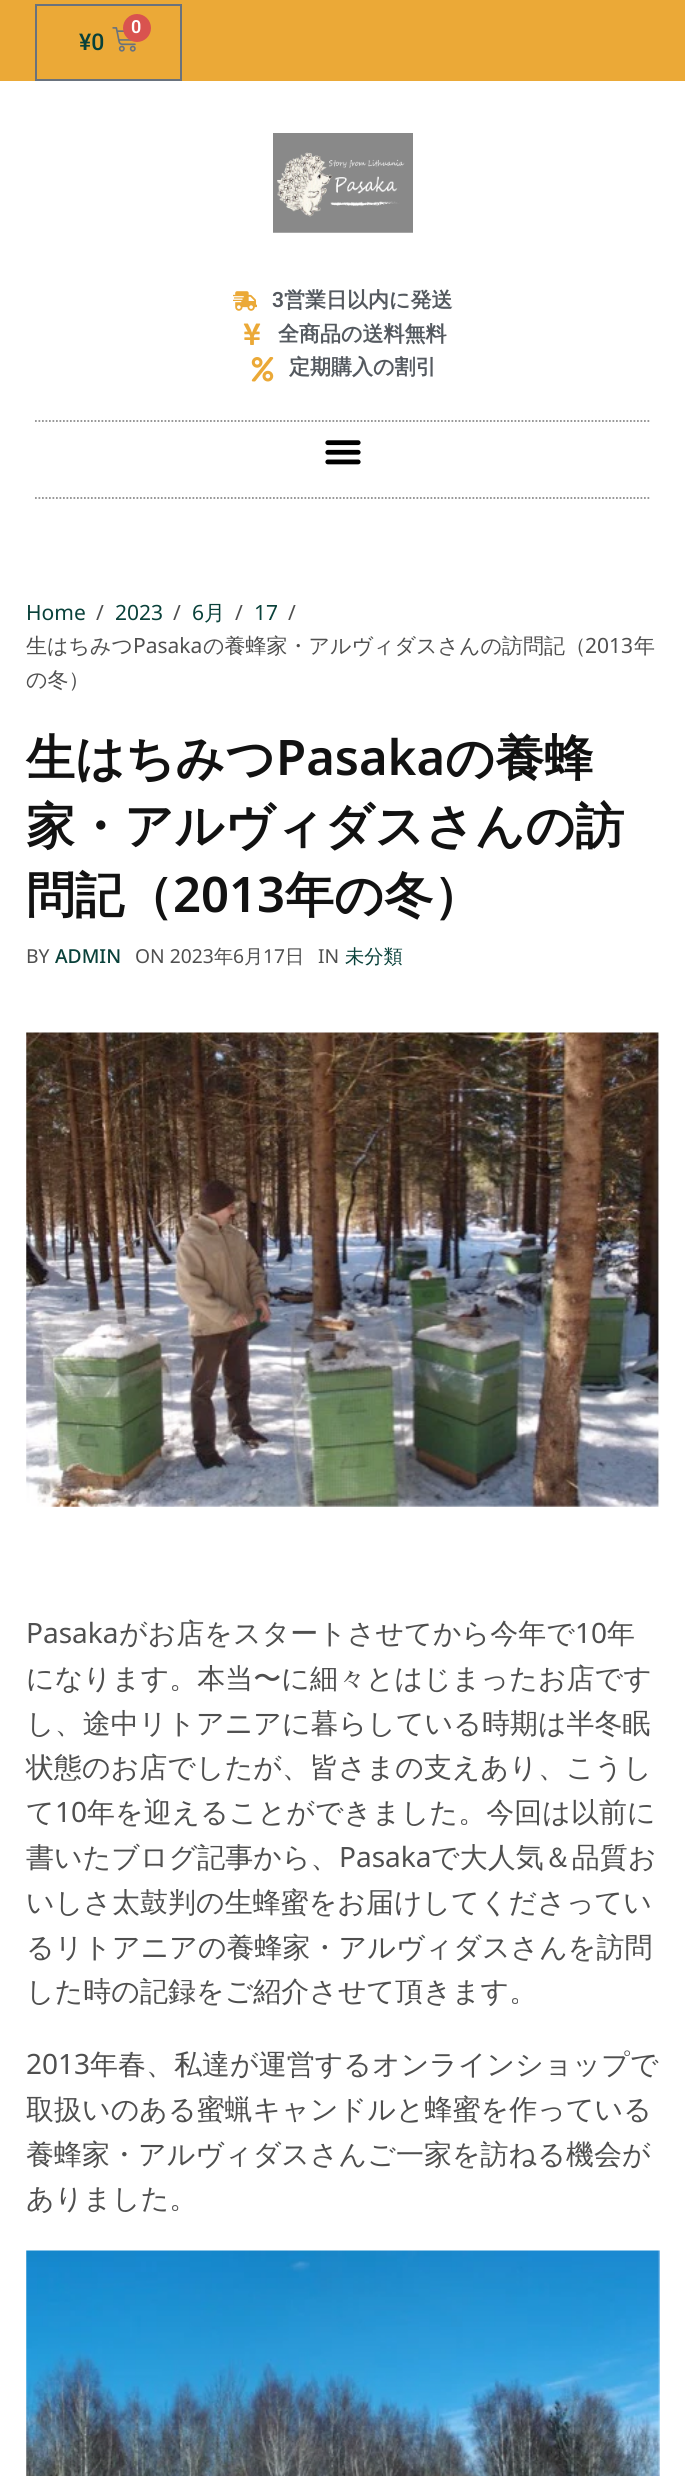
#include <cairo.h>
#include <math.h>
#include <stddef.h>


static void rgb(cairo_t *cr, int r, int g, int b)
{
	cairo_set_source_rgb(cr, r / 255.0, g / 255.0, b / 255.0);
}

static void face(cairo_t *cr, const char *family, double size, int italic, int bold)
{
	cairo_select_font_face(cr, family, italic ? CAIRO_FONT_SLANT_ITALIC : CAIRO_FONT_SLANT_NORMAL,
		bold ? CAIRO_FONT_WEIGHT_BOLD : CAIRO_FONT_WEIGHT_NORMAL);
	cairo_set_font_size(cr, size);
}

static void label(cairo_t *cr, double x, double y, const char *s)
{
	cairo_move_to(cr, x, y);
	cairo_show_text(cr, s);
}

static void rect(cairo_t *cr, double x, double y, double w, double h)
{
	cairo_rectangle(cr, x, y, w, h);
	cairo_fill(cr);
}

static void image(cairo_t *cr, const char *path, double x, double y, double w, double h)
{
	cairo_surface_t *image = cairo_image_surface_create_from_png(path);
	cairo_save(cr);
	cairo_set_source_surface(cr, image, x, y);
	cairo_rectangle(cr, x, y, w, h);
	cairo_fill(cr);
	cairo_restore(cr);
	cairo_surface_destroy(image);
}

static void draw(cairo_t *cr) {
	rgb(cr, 255, 255, 255);
	cairo_paint(cr);
	rgb(cr, 235, 169, 55);
	rect(cr, 0, 0, 685, 81);
	cairo_rectangle(cr, 36, 5, 145, 75);
	rgb(cr, 105, 114, 125);
	cairo_stroke(cr);
	image(cr, "image0.png", 112, 27, 24, 25);
	rgb(cr, 217, 83, 79);
	cairo_arc(cr, 137, 28, 14, 0, 2 * M_PI);
	cairo_fill(cr);
	face(cr, "Roboto SemiBold", 18, 0, 0);
	rgb(cr, 255, 255, 255);
	label(cr, 131, 33, "0");
	face(cr, "Roboto Medium", 23, 0, 0);
	rgb(cr, 9, 65, 58);
	label(cr, 79, 50, "¥0");
	image(cr, "image1.png", 273, 133, 140, 100);
	image(cr, "image2.png", 233, 291, 24, 20);
	face(cr, "Roboto SemiBold", 21, 0, 0);
	rgb(cr, 84, 89, 95);
	label(cr, 272, 307, "3");
	face(cr, "WenQuanYi Zen Hei", 21, 0, 1);
	label(cr, 284, 307, "営業日以内に発送");
	image(cr, "image3.png", 243, 323, 18, 22);
	label(cr, 278, 341, "全商品の送料無料");
	image(cr, "image4.png", 251, 357, 23, 25);
	label(cr, 289, 374, "定期購入の割引");
	cairo_new_path(cr);
	cairo_move_to(cr, 35, 421);
	cairo_line_to(cr, 651, 421);
	rgb(cr, 142, 142, 142);
	cairo_set_line_width(cr, 1.8);
	cairo_set_dash(cr, (double[]){1.75, 1.75}, 2, 0);
	cairo_stroke(cr);
	cairo_new_path(cr);
	cairo_move_to(cr, 35, 498);
	cairo_line_to(cr, 651, 498);
	cairo_stroke(cr);
	image(cr, "image5.png", 325, 440, 36, 25);
	face(cr, "Noto Sans", 21, 0, 0);
	rgb(cr, 9, 65, 58);
	label(cr, 26, 620, "Home");
	rgb(cr, 79, 79, 79);
	label(cr, 96, 620, "/");
	rgb(cr, 9, 65, 58);
	label(cr, 115, 620, "2023");
	rgb(cr, 79, 79, 79);
	label(cr, 173, 620, "/");
	rgb(cr, 9, 65, 58);
	label(cr, 192, 620, "6");
	face(cr, "WenQuanYi Zen Hei Medium", 21, 0, 0);
	label(cr, 204, 620, "月");
	face(cr, "Noto Sans", 21, 0, 0);
	rgb(cr, 79, 79, 79);
	label(cr, 235, 620, "/");
	rgb(cr, 9, 65, 58);
	label(cr, 254, 620, "17");
	rgb(cr, 79, 79, 79);
	label(cr, 288, 620, "/");
	face(cr, "WenQuanYi Zen Hei Medium", 21, 0, 0);
	label(cr, 26, 653, "生はちみつ");
	face(cr, "Noto Sans", 21, 0, 0);
	label(cr, 133, 653, "Pasaka");
	face(cr, "WenQuanYi Zen Hei Medium", 21, 0, 0);
	label(cr, 203, 653, "の養蜂家・アルヴィダスさんの訪問記（");
	face(cr, "Noto Sans", 21, 0, 0);
	label(cr, 585, 653, "2013");
	face(cr, "WenQuanYi Zen Hei Medium", 21, 0, 0);
	label(cr, 634, 653, "年");
	label(cr, 26, 687, "の冬）");
	face(cr, "WenQuanYi Zen Hei", 49, 0, 1);
	rgb(cr, 18, 18, 18);
	label(cr, 26, 775, "生はちみつ");
	face(cr, "Noto Sans SemiBold", 49, 0, 0);
	label(cr, 276, 775, "Pasaka");
	face(cr, "WenQuanYi Zen Hei", 49, 0, 1);
	label(cr, 445, 775, "の養蜂");
	label(cr, 26, 843, "家・アルヴィダスさんの訪");
	label(cr, 26, 912, "問記（");
	face(cr, "Noto Sans SemiBold", 49, 0, 0);
	label(cr, 173, 912, "2013");
	face(cr, "WenQuanYi Zen Hei", 49, 0, 1);
	label(cr, 285, 912, "年の冬）");
	face(cr, "Noto Sans", 19.25, 0, 0);
	rgb(cr, 79, 79, 79);
	label(cr, 26, 963, "BY");
	face(cr, "Noto Sans Medium", 19.25, 0, 0);
	rgb(cr, 9, 65, 58);
	label(cr, 55, 963, "ADMIN");
	face(cr, "Noto Sans", 19.25, 0, 0);
	rgb(cr, 79, 79, 79);
	label(cr, 135, 963, "ON 2023");
	face(cr, "WenQuanYi Zen Hei Medium", 19.25, 0, 0);
	label(cr, 214, 963, "年");
	face(cr, "Noto Sans", 19.25, 0, 0);
	label(cr, 233, 963, "6");
	face(cr, "WenQuanYi Zen Hei Medium", 19.25, 0, 0);
	label(cr, 244, 963, "月");
	face(cr, "Noto Sans", 19.25, 0, 0);
	label(cr, 263, 963, "17");
	face(cr, "WenQuanYi Zen Hei Medium", 19.25, 0, 0);
	label(cr, 285, 963, "日");
	face(cr, "Noto Sans", 19.25, 0, 0);
	label(cr, 318, 963, "IN");
	face(cr, "WenQuanYi Zen Hei Medium", 19.25, 0, 0);
	rgb(cr, 9, 65, 58);
	label(cr, 345, 963, "未分類");
	image(cr, "image6.png", 26, 1032, 634, 475);
	face(cr, "Noto Sans", 28, 0, 0);
	rgb(cr, 79, 79, 79);
	label(cr, 26, 1643, "Pasaka");
	face(cr, "WenQuanYi Zen Hei Medium", 28, 0, 0);
	label(cr, 119, 1643, "がお店をスタートさせてから今年で");
	face(cr, "Noto Sans", 28, 0, 0);
	label(cr, 575, 1643, "10");
	face(cr, "WenQuanYi Zen Hei Medium", 28, 0, 0);
	label(cr, 607, 1643, "年");
	label(cr, 26, 1688, "になります。本当〜に細々とはじまったお店です");
	label(cr, 26, 1733, "し、途中リトアニアに暮らしている時期は半冬眠");
	label(cr, 26, 1777, "状態のお店でしたが、皆さまの支えあり、こうし");
	label(cr, 26, 1822, "て");
	face(cr, "Noto Sans", 28, 0, 0);
	label(cr, 55, 1822, "10");
	face(cr, "WenQuanYi Zen Hei Medium", 28, 0, 0);
	label(cr, 87, 1822, "年を迎えることができました。今回は以前に");
	label(cr, 26, 1867, "書いたブログ記事から、");
	face(cr, "Noto Sans", 28, 0, 0);
	label(cr, 339, 1867, "Pasaka");
	face(cr, "WenQuanYi Zen Hei Medium", 28, 0, 0);
	label(cr, 431, 1867, "で大人気＆品質お");
	label(cr, 26, 1912, "いしさ太鼓判の生蜂蜜をお届けしてくださってい");
	label(cr, 26, 1957, "るリトアニアの養蜂家・アルヴィダスさんを訪問");
	label(cr, 26, 2001, "した時の記録をご紹介させて頂きます。");
	face(cr, "Noto Sans", 28, 0, 0);
	label(cr, 26, 2074, "2013");
	face(cr, "WenQuanYi Zen Hei Medium", 28, 0, 0);
	label(cr, 90, 2074, "年春、私達が運営するオンラインショップで");
	label(cr, 26, 2119, "取扱いのある蜜蝋キャンドルと蜂蜜を作っている");
	label(cr, 26, 2164, "養蜂家・アルヴィダスさんご一家を訪ねる機会が");
	label(cr, 26, 2208, "ありました。");
	image(cr, "image7.png", 26, 2250, 634, 226);
}

int main(void) {
	cairo_surface_t *surface = cairo_image_surface_create(CAIRO_FORMAT_RGB24, 685, 2476);
	cairo_t *cr = cairo_create(surface);
	cairo_font_options_t *options = cairo_font_options_create();
	cairo_font_options_set_hint_metrics(options, CAIRO_HINT_METRICS_OFF);
	cairo_font_options_set_hint_style(options, CAIRO_HINT_STYLE_NONE);
	cairo_set_font_options(cr, options);
	cairo_set_miter_limit(cr, 4);
	draw(cr);
	cairo_surface_write_to_png(surface, "render.png");
	cairo_font_options_destroy(options);
	cairo_destroy(cr);
	cairo_surface_destroy(surface);
	return 0;
}
